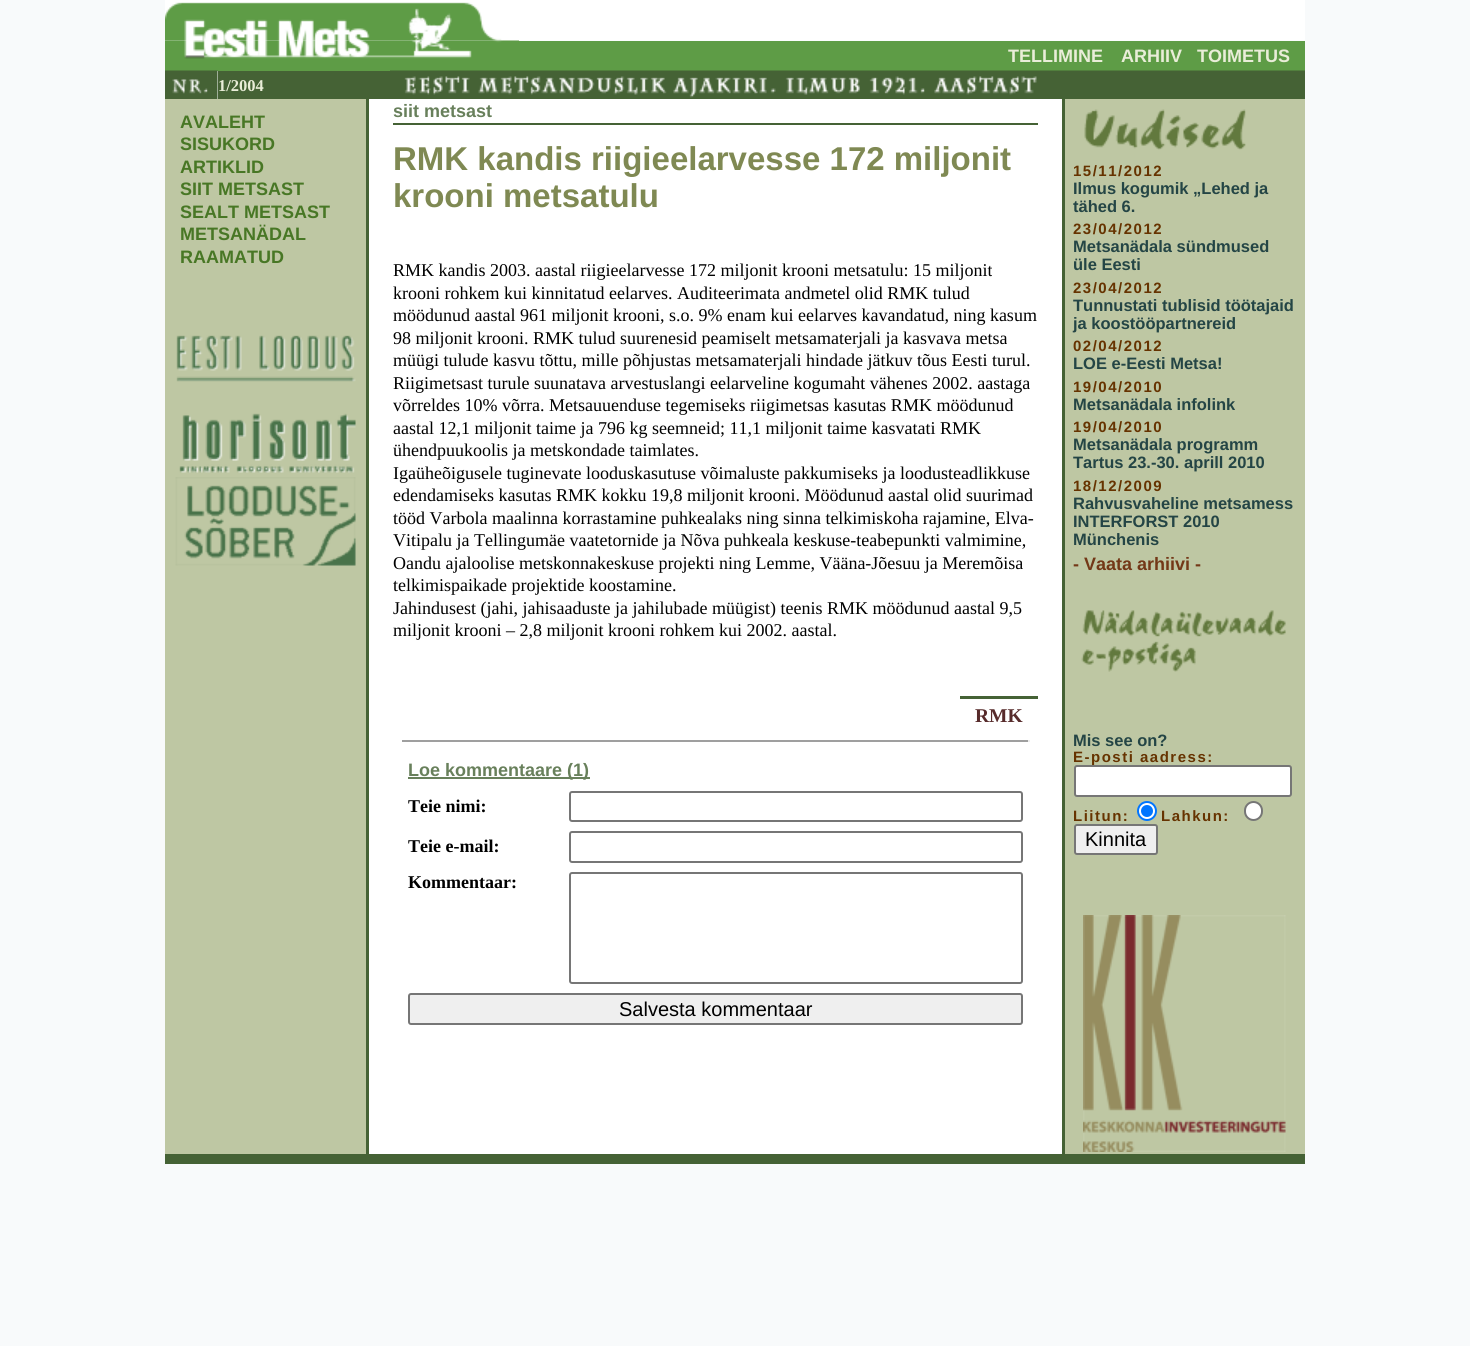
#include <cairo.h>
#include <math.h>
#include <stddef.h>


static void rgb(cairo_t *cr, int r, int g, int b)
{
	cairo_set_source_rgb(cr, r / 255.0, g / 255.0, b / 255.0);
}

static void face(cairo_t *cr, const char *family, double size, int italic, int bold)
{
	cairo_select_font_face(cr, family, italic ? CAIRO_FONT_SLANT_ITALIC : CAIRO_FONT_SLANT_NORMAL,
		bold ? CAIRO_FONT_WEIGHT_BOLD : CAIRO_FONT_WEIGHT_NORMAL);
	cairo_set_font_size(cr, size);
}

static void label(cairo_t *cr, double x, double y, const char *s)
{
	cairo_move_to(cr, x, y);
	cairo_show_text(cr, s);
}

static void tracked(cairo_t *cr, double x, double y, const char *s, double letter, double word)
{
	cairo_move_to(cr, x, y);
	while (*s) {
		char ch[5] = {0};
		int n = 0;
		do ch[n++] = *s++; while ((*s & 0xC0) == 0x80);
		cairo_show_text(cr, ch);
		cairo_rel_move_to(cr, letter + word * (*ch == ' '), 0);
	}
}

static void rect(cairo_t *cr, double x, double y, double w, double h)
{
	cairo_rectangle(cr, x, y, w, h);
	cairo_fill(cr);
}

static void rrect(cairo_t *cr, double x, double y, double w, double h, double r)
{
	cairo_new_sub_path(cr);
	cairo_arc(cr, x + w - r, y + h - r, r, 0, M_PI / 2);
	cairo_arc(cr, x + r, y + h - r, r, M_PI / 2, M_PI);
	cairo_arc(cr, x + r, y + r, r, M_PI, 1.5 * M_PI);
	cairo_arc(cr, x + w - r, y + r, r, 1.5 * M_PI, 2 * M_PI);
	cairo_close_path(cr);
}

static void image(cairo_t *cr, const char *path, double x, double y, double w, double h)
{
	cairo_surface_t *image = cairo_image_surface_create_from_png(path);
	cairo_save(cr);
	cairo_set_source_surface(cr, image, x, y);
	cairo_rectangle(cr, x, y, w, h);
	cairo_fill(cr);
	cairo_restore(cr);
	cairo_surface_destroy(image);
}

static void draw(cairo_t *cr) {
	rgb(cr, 248, 250, 251);
	cairo_paint(cr);
	image(cr, "image0.png", 165, 0, 1140, 41);
	rgb(cr, 94, 156, 70);
	rect(cr, 165, 41, 1140, 30);
	image(cr, "image1.png", 165, 40, 354, 19);
	face(cr, "Liberation Sans", 18, 0, 1);
	rgb(cr, 233, 237, 216);
	label(cr, 1008, 62, "TELLIMINE");
	label(cr, 1121, 62, "ARHIIV");
	label(cr, 1197, 62, "TOIMETUS");
	image(cr, "image2.png", 165, 70, 53, 29);
	rgb(cr, 69, 98, 53);
	rect(cr, 218, 71, 172, 28);
	face(cr, "Liberation Serif", 16.5, 0, 1);
	rgb(cr, 233, 237, 216);
	label(cr, 218, 91, "1/2004");
	image(cr, "image3.png", 390, 70, 915, 29);
	rgb(cr, 190, 199, 163);
	rect(cr, 165, 99, 201, 1055);
	face(cr, "Liberation Sans", 18, 0, 1);
	rgb(cr, 72, 119, 37);
	label(cr, 180, 128, "AVALEHT");
	label(cr, 180, 150, "SISUKORD");
	label(cr, 180, 173, "ARTIKLID");
	label(cr, 180, 195, "SIIT METSAST");
	label(cr, 180, 218, "SEALT METSAST");
	label(cr, 180, 240, "METSANÄDAL");
	label(cr, 180, 263, "RAAMATUD");
	image(cr, "image4.png", 176, 335, 180, 47);
	image(cr, "image5.png", 179, 413, 177, 60);
	image(cr, "image6.png", 175, 477, 181, 89);
	rgb(cr, 69, 98, 53);
	rect(cr, 366, 99, 3, 1055);
	rgb(cr, 255, 255, 255);
	rect(cr, 369, 99, 693, 1055);
	rgb(cr, 104, 128, 91);
	label(cr, 393, 117, "siit metsast");
	rgb(cr, 69, 98, 53);
	rect(cr, 393, 123, 645, 2);
	face(cr, "Liberation Sans", 33, 0, 1);
	rgb(cr, 127, 137, 83);
	label(cr, 393, 170, "RMK kandis riigieelarvesse 172 miljonit");
	label(cr, 393, 207, "krooni metsatulu");
	face(cr, "Liberation Serif", 18, 0, 0);
	rgb(cr, 0, 0, 0);
	label(cr, 393, 276, "RMK kandis 2003. aastal riigieelarvesse 172 miljonit krooni metsatulu: 15 miljonit");
	label(cr, 393, 299, "krooni rohkem kui kinnitatud eelarves. Auditeerimata andmetel olid RMK tulud");
	label(cr, 393, 321, "möödunud aastal 961 miljonit krooni, s.o. 9% enam kui eelarves kavandatud, ning kasum");
	label(cr, 393, 344, "98 miljonit krooni. RMK tulud suurenesid peamiselt metsamaterjali ja kasvava metsa");
	label(cr, 393, 366, "müügi tulude kasvu tõttu, mille põhjustas metsamaterjali hindade jätkuv tõus Eesti turul.");
	label(cr, 393, 389, "Riigimetsast turule suunatava arvestuslangi eelarveline kogumaht vähenes 2002. aastaga");
	label(cr, 393, 411, "võrreldes 10% võrra. Metsauuenduse tegemiseks riigimetsas kasutas RMK möödunud");
	label(cr, 393, 434, "aastal 12,1 miljonit taime ja 796 kg seemneid; 11,1 miljonit taime kasvatati RMK");
	label(cr, 393, 456, "ühendpuukoolis ja metskondade taimlates.");
	label(cr, 393, 479, "Igaüheõigusele tuginevate looduskasutuse võimaluste pakkumiseks ja loodusteadlikkuse");
	label(cr, 393, 501, "edendamiseks kasutas RMK kokku 19,8 miljonit krooni. Möödunud aastal olid suurimad");
	label(cr, 393, 524, "tööd Varbola maalinna korrastamine puhkealaks ning sinna telkimiskoha rajamine, Elva-");
	label(cr, 393, 546, "Vitipalu ja Tellingumäe vaatetornide ja Nõva puhkeala keskuse-teabepunkti valmimine,");
	label(cr, 393, 569, "Oandu ajaloolise metskonnakeskuse projekti ning Lemme, Vääna-Jõesuu ja Meremõisa");
	label(cr, 393, 591, "telkimispaikade projektide koostamine.");
	label(cr, 393, 614, "Jahindusest (jahi, jahisaaduste ja jahilubade müügist) teenis RMK möödunud aastal 9,5");
	label(cr, 393, 636, "miljonit krooni – 2,8 miljonit krooni rohkem kui 2002. aastal.");
	rgb(cr, 69, 98, 53);
	rect(cr, 960, 696, 78, 3);
	face(cr, "Liberation Serif", 19.5, 0, 1);
	rgb(cr, 87, 43, 43);
	label(cr, 975, 722, "RMK");
	rgb(cr, 159, 159, 159);
	rect(cr, 402, 740, 627, 2);
	rgb(cr, 238, 238, 238);
	rect(cr, 1028, 740, 2, 2);
	rgb(cr, 104, 128, 91);
	rect(cr, 408, 777, 182, 2);
	face(cr, "Liberation Sans", 18, 0, 1);
	label(cr, 408, 776, "Loe kommentaare (1)");
	face(cr, "Liberation Serif", 18, 0, 1);
	rgb(cr, 0, 0, 0);
	label(cr, 408, 812, "Teie nimi:");
	rrect(cr, 570, 792, 452, 29, 2);
	rgb(cr, 118, 118, 118);
	cairo_stroke(cr);
	rgb(cr, 0, 0, 0);
	label(cr, 408, 852, "Teie e-mail:");
	rrect(cr, 570, 832, 452, 30, 2);
	rgb(cr, 118, 118, 118);
	cairo_stroke(cr);
	rgb(cr, 0, 0, 0);
	label(cr, 408, 888, "Kommentaar:");
	rrect(cr, 570, 873, 452, 110, 2);
	rgb(cr, 118, 118, 118);
	cairo_stroke(cr);
	rgb(cr, 239, 239, 239);
	rrect(cr, 409, 994, 613, 30, 2);
	cairo_fill_preserve(cr);
	rgb(cr, 118, 118, 118);
	cairo_stroke(cr);
	face(cr, "Liberation Sans", 20, 0, 0);
	rgb(cr, 0, 0, 0);
	label(cr, 619, 1016, "Salvesta kommentaar");
	rgb(cr, 69, 98, 53);
	rect(cr, 1062, 99, 3, 1055);
	rgb(cr, 190, 199, 163);
	rect(cr, 1065, 99, 240, 1055);
	image(cr, "image7.png", 1084, 109, 162, 41);
	face(cr, "Liberation Sans", 15, 0, 1);
	rgb(cr, 102, 51, 0);
	tracked(cr, 1073, 176, "15/11/2012", 1.5, 0);
	face(cr, "Liberation Sans", 16.5, 0, 1);
	rgb(cr, 36, 69, 69);
	label(cr, 1073, 194, "Ilmus kogumik „Lehed ja");
	label(cr, 1073, 212, "tähed 6.");
	face(cr, "Liberation Sans", 15, 0, 1);
	rgb(cr, 102, 51, 0);
	tracked(cr, 1073, 234, "23/04/2012", 1.5, 0);
	face(cr, "Liberation Sans", 16.5, 0, 1);
	rgb(cr, 36, 69, 69);
	label(cr, 1073, 252, "Metsanädala sündmused");
	label(cr, 1073, 270, "üle Eesti");
	face(cr, "Liberation Sans", 15, 0, 1);
	rgb(cr, 102, 51, 0);
	tracked(cr, 1073, 293, "23/04/2012", 1.5, 0);
	face(cr, "Liberation Sans", 16.5, 0, 1);
	rgb(cr, 36, 69, 69);
	label(cr, 1073, 311, "Tunnustati tublisid töötajaid");
	label(cr, 1073, 329, "ja koostööpartnereid");
	face(cr, "Liberation Sans", 15, 0, 1);
	rgb(cr, 102, 51, 0);
	tracked(cr, 1073, 351, "02/04/2012", 1.5, 0);
	face(cr, "Liberation Sans", 16.5, 0, 1);
	rgb(cr, 36, 69, 69);
	label(cr, 1073, 369, "LOE e-Eesti Metsa!");
	face(cr, "Liberation Sans", 15, 0, 1);
	rgb(cr, 102, 51, 0);
	tracked(cr, 1073, 392, "19/04/2010", 1.5, 0);
	face(cr, "Liberation Sans", 16.5, 0, 1);
	rgb(cr, 36, 69, 69);
	label(cr, 1073, 410, "Metsanädala infolink");
	face(cr, "Liberation Sans", 15, 0, 1);
	rgb(cr, 102, 51, 0);
	tracked(cr, 1073, 432, "19/04/2010", 1.5, 0);
	face(cr, "Liberation Sans", 16.5, 0, 1);
	rgb(cr, 36, 69, 69);
	label(cr, 1073, 450, "Metsanädala programm");
	label(cr, 1073, 468, "Tartus 23.-30. aprill 2010");
	face(cr, "Liberation Sans", 15, 0, 1);
	rgb(cr, 102, 51, 0);
	tracked(cr, 1073, 491, "18/12/2009", 1.5, 0);
	face(cr, "Liberation Sans", 16.5, 0, 1);
	rgb(cr, 36, 69, 69);
	label(cr, 1073, 509, "Rahvusvaheline metsamess");
	label(cr, 1073, 527, "INTERFORST 2010");
	label(cr, 1073, 545, "Münchenis");
	face(cr, "Liberation Sans", 18, 0, 1);
	rgb(cr, 115, 56, 23);
	label(cr, 1073, 570, "- Vaata arhiivi -");
	image(cr, "image8.png", 1081, 610, 205, 62);
	face(cr, "Liberation Sans", 16.5, 0, 1);
	rgb(cr, 36, 69, 69);
	label(cr, 1073, 746, "Mis see on?");
	face(cr, "Liberation Sans", 15, 0, 1);
	rgb(cr, 102, 51, 0);
	tracked(cr, 1073, 762, "E-posti aadress:", 1.5, 0);
	rgb(cr, 255, 255, 255);
	rrect(cr, 1075, 766, 216, 30, 2);
	cairo_fill_preserve(cr);
	rgb(cr, 118, 118, 118);
	cairo_stroke(cr);
	rgb(cr, 102, 51, 0);
	tracked(cr, 1073, 821, "Liitun:", 1.5, 0);
	rgb(cr, 255, 255, 255);
	cairo_new_path(cr);
	cairo_arc(cr, 1147, 811, 9, 0, 2 * M_PI);
	cairo_fill_preserve(cr);
	rgb(cr, 0, 117, 255);
	cairo_stroke(cr);
	cairo_arc(cr, 1147, 811, 6, 0, 2 * M_PI);
	cairo_fill(cr);
	rgb(cr, 102, 51, 0);
	tracked(cr, 1161, 821, "Lahkun:", 1.5, 0);
	rgb(cr, 255, 255, 255);
	rrect(cr, 1245, 802, 17, 18, 8.5);
	cairo_fill_preserve(cr);
	rgb(cr, 118, 118, 118);
	cairo_stroke(cr);
	rgb(cr, 239, 239, 239);
	rrect(cr, 1075, 825, 82, 29, 2);
	cairo_fill_preserve(cr);
	rgb(cr, 118, 118, 118);
	cairo_stroke(cr);
	face(cr, "Liberation Sans", 20, 0, 0);
	rgb(cr, 0, 0, 0);
	label(cr, 1085, 846, "Kinnita");
	image(cr, "image9.png", 1083, 915, 203, 237);
	rgb(cr, 69, 98, 53);
	rect(cr, 165, 1154, 1140, 10);
}

int main(void) {
	cairo_surface_t *surface = cairo_image_surface_create(CAIRO_FORMAT_RGB24, 1470, 1346);
	cairo_t *cr = cairo_create(surface);
	cairo_font_options_t *options = cairo_font_options_create();
	cairo_font_options_set_hint_metrics(options, CAIRO_HINT_METRICS_OFF);
	cairo_font_options_set_hint_style(options, CAIRO_HINT_STYLE_NONE);
	cairo_set_font_options(cr, options);
	cairo_set_miter_limit(cr, 4);
	draw(cr);
	cairo_surface_write_to_png(surface, "render.png");
	cairo_font_options_destroy(options);
	cairo_destroy(cr);
	cairo_surface_destroy(surface);
	return 0;
}
